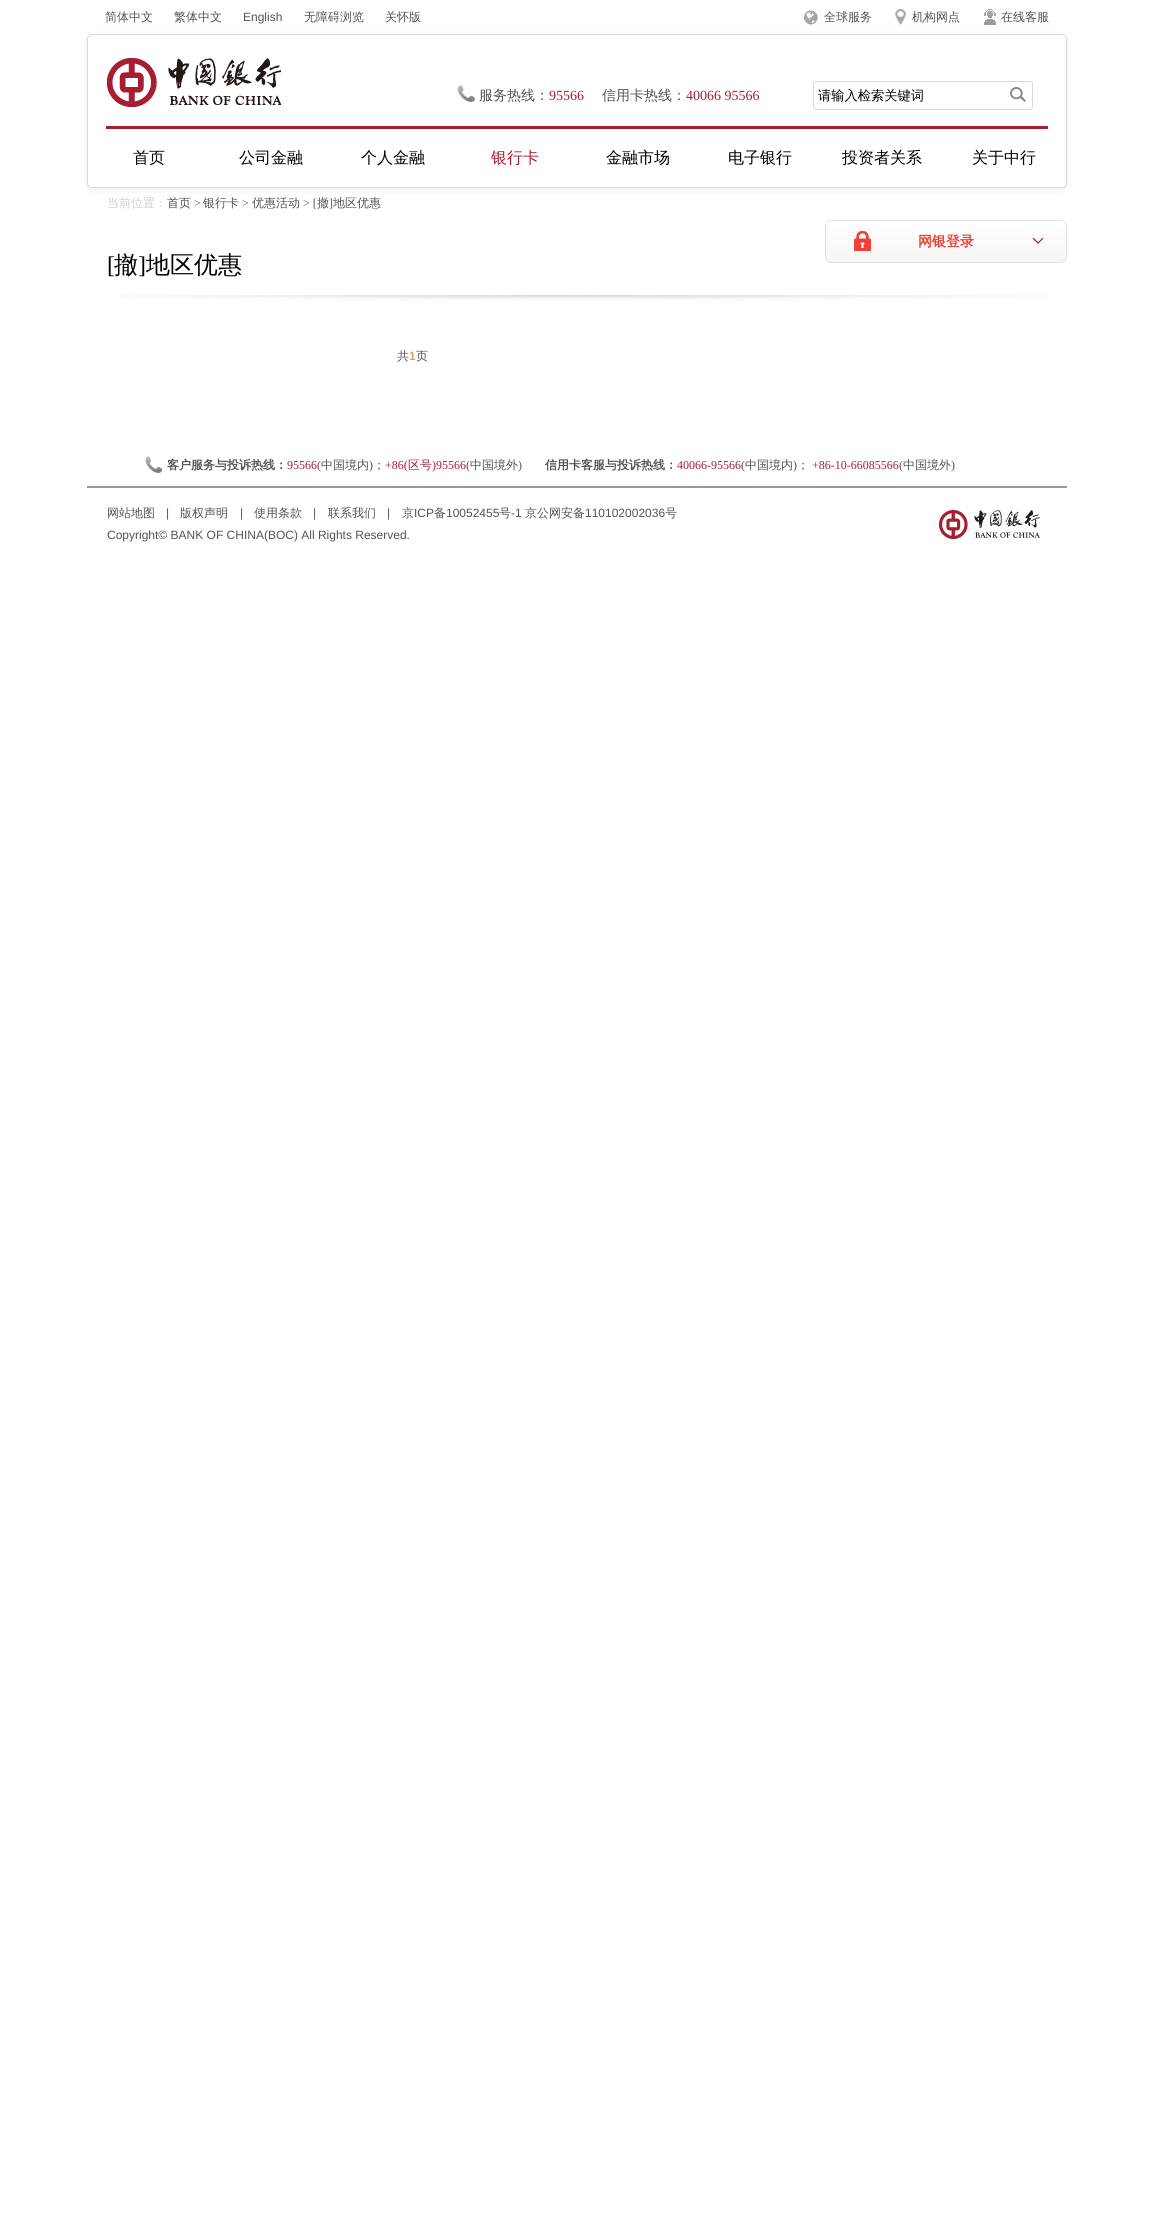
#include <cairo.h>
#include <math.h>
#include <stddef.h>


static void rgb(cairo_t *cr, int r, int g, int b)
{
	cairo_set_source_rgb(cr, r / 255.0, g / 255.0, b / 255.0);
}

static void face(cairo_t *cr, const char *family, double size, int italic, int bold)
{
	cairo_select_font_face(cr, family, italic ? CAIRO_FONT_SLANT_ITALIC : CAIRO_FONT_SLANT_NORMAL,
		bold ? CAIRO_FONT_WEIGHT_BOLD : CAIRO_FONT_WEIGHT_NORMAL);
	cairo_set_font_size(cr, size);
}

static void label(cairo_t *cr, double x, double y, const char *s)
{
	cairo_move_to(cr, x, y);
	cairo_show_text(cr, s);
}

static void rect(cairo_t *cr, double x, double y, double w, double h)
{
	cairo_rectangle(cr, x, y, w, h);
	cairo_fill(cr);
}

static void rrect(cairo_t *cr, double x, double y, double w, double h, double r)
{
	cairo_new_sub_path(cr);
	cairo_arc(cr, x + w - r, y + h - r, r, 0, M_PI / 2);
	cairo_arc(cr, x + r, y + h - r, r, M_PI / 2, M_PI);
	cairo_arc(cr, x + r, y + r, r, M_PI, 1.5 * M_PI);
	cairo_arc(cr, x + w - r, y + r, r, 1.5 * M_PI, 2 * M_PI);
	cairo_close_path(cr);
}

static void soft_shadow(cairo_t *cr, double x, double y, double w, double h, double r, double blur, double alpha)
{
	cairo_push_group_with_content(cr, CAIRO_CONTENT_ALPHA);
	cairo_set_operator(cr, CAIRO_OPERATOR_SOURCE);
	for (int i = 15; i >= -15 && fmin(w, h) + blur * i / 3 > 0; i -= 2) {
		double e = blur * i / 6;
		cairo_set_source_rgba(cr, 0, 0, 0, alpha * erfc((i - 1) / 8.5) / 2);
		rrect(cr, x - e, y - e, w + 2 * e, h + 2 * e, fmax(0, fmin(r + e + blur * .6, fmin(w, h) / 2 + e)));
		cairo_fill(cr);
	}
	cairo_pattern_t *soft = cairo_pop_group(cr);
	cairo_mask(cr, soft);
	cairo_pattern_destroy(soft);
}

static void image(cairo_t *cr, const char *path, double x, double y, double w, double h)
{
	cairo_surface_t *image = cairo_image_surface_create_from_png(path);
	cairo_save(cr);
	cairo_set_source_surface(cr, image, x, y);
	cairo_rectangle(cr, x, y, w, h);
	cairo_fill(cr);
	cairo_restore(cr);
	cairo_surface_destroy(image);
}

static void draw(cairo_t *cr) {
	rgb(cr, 255, 255, 255);
	cairo_paint(cr);
	face(cr, "WenQuanYi Zen Hei Medium", 12, 0, 0);
	rgb(cr, 83, 83, 83);
	label(cr, 105, 21, "简体中文");
	label(cr, 174, 21, "繁体中文");
	face(cr, "Liberation Sans", 12, 0, 0);
	label(cr, 243, 21, "English");
	face(cr, "WenQuanYi Zen Hei Medium", 12, 0, 0);
	label(cr, 304, 21, "无障碍浏览");
	label(cr, 385, 21, "关怀版");
	image(cr, "image0.png", 804, 10, 14, 15);
	label(cr, 824, 21, "全球服务");
	image(cr, "image1.png", 895, 9, 11, 16);
	label(cr, 912, 21, "机构网点");
	image(cr, "image2.png", 984, 9, 12, 16);
	label(cr, 1001, 21, "在线客服");
	rgb(cr, 238, 238, 238);
	soft_shadow(cr, 87, 36, 980, 154, 5, 3, 1);
	rgb(cr, 255, 255, 255);
	rrect(cr, 87.5, 34.5, 979, 153, 4.5);
	cairo_fill_preserve(cr);
	rgb(cr, 218, 218, 218);
	cairo_set_line_width(cr, 1);
	cairo_stroke(cr);
	rgb(cr, 167, 30, 50);
	rect(cr, 106, 126, 942, 3);
	image(cr, "image3.png", 107, 58, 174, 49);
	image(cr, "image4.png", 457, 85, 18, 17);
	face(cr, "WenQuanYi Zen Hei Medium", 14, 0, 0);
	rgb(cr, 83, 83, 83);
	label(cr, 479, 100, "服务热线：");
	face(cr, "Liberation Serif", 14, 0, 0);
	rgb(cr, 167, 30, 50);
	label(cr, 549, 100, "95566");
	face(cr, "WenQuanYi Zen Hei Medium", 14, 0, 0);
	rgb(cr, 83, 83, 83);
	label(cr, 602, 100, "信用卡热线：");
	face(cr, "Liberation Serif", 14, 0, 0);
	rgb(cr, 167, 30, 50);
	label(cr, 686, 100, "40066 95566");
	rrect(cr, 813.5, 81.5, 219, 28, 2.5);
	rgb(cr, 218, 218, 218);
	cairo_stroke(cr);
	face(cr, "WenQuanYi Zen Hei Medium", 13.25, 0, 0);
	rgb(cr, 0, 0, 0);
	label(cr, 818, 100, "请输入检索关键词");
	image(cr, "image5.png", 1010, 87, 16, 15);
	face(cr, "WenQuanYi Zen Hei Medium", 16, 0, 0);
	label(cr, 133, 163, "首页");
	label(cr, 239, 163, "公司金融");
	label(cr, 361, 163, "个人金融");
	rgb(cr, 167, 30, 50);
	label(cr, 491, 163, "银行卡");
	rgb(cr, 0, 0, 0);
	label(cr, 606, 163, "金融市场");
	label(cr, 728, 163, "电子银行");
	label(cr, 842, 163, "投资者关系");
	label(cr, 972, 163, "关于中行");
	face(cr, "WenQuanYi Zen Hei Medium", 12, 0, 0);
	rgb(cr, 204, 204, 204);
	label(cr, 107, 207, "当前位置：");
	rgb(cr, 83, 83, 83);
	label(cr, 167, 207, "首页");
	face(cr, "Liberation Serif", 12, 0, 0);
	label(cr, 194, 207, ">");
	face(cr, "WenQuanYi Zen Hei Medium", 12, 0, 0);
	label(cr, 203, 207, "银行卡");
	face(cr, "Liberation Serif", 12, 0, 0);
	label(cr, 242, 207, ">");
	face(cr, "WenQuanYi Zen Hei Medium", 12, 0, 0);
	label(cr, 252, 207, "优惠活动");
	face(cr, "Liberation Serif", 12, 0, 0);
	label(cr, 303, 207, "> [");
	face(cr, "WenQuanYi Zen Hei Medium", 12, 0, 0);
	label(cr, 317, 207, "撤");
	face(cr, "Liberation Serif", 12, 0, 0);
	label(cr, 329, 207, "]");
	face(cr, "WenQuanYi Zen Hei Medium", 12, 0, 0);
	label(cr, 333, 207, "地区优惠");
	image(cr, "image6.png", 825, 220, 242, 43);
	face(cr, "WenQuanYi Zen Hei", 14, 0, 1);
	rgb(cr, 238, 64, 54);
	label(cr, 918, 246, "网银登录");
	image(cr, "image7.png", 119, 295, 928, 6);
	face(cr, "Liberation Serif", 24, 0, 0);
	rgb(cr, 0, 0, 0);
	label(cr, 107, 273, "[");
	face(cr, "WenQuanYi Zen Hei Medium", 24, 0, 0);
	label(cr, 114, 273, "撤");
	face(cr, "Liberation Serif", 24, 0, 0);
	label(cr, 138, 273, "]");
	face(cr, "WenQuanYi Zen Hei Medium", 24, 0, 0);
	label(cr, 146, 273, "地区优惠");
	face(cr, "WenQuanYi Zen Hei Medium", 12, 0, 0);
	rgb(cr, 83, 83, 83);
	label(cr, 397, 360, "共");
	face(cr, "Liberation Sans", 12, 0, 1);
	rgb(cr, 212, 166, 88);
	label(cr, 409, 360, "1");
	face(cr, "WenQuanYi Zen Hei Medium", 12, 0, 0);
	rgb(cr, 83, 83, 83);
	label(cr, 416, 360, "页");
	image(cr, "image8.png", 145, 456, 17, 17);
	face(cr, "WenQuanYi Zen Hei", 12, 0, 1);
	label(cr, 167, 469, "客户服务与投诉热线：");
	face(cr, "Liberation Serif", 12, 0, 0);
	rgb(cr, 167, 30, 50);
	label(cr, 287, 469, "95566");
	rgb(cr, 83, 83, 83);
	label(cr, 317, 469, "(");
	face(cr, "WenQuanYi Zen Hei Medium", 12, 0, 0);
	label(cr, 321, 469, "中国境内");
	face(cr, "Liberation Serif", 12, 0, 0);
	label(cr, 369, 469, ")");
	face(cr, "WenQuanYi Zen Hei Medium", 12, 0, 0);
	label(cr, 373, 469, "；");
	face(cr, "Liberation Serif", 12, 0, 0);
	rgb(cr, 167, 30, 50);
	label(cr, 385, 469, "+86(");
	face(cr, "WenQuanYi Zen Hei Medium", 12, 0, 0);
	label(cr, 408, 469, "区号");
	face(cr, "Liberation Serif", 12, 0, 0);
	label(cr, 432, 469, ")95566");
	rgb(cr, 83, 83, 83);
	label(cr, 466, 469, "(");
	face(cr, "WenQuanYi Zen Hei Medium", 12, 0, 0);
	label(cr, 470, 469, "中国境外");
	face(cr, "Liberation Serif", 12, 0, 0);
	label(cr, 518, 469, ")");
	face(cr, "WenQuanYi Zen Hei", 12, 0, 1);
	label(cr, 545, 469, "信用卡客服与投诉热线：");
	face(cr, "Liberation Serif", 12, 0, 0);
	rgb(cr, 167, 30, 50);
	label(cr, 677, 469, "40066-95566");
	rgb(cr, 83, 83, 83);
	label(cr, 741, 469, "(");
	face(cr, "WenQuanYi Zen Hei Medium", 12, 0, 0);
	label(cr, 745, 469, "中国境内");
	face(cr, "Liberation Serif", 12, 0, 0);
	label(cr, 793, 469, ")");
	face(cr, "WenQuanYi Zen Hei Medium", 12, 0, 0);
	label(cr, 797, 469, "；");
	face(cr, "Liberation Serif", 12, 0, 0);
	rgb(cr, 167, 30, 50);
	label(cr, 812, 469, "+86-10-66085566");
	rgb(cr, 83, 83, 83);
	label(cr, 899, 469, "(");
	face(cr, "WenQuanYi Zen Hei Medium", 12, 0, 0);
	label(cr, 903, 469, "中国境外");
	face(cr, "Liberation Serif", 12, 0, 0);
	label(cr, 951, 469, ")");
	rgb(cr, 153, 153, 153);
	rect(cr, 87, 486, 980, 2);
	image(cr, "image9.png", 939, 510, 101, 29);
	face(cr, "WenQuanYi Zen Hei Medium", 12, 0, 0);
	rgb(cr, 83, 83, 83);
	label(cr, 107, 517, "网站地图");
	face(cr, "Liberation Sans", 12, 0, 0);
	label(cr, 166, 517, "|");
	face(cr, "WenQuanYi Zen Hei Medium", 12, 0, 0);
	label(cr, 180, 517, "版权声明");
	face(cr, "Liberation Sans", 12, 0, 0);
	label(cr, 240, 517, "|");
	face(cr, "WenQuanYi Zen Hei Medium", 12, 0, 0);
	label(cr, 254, 517, "使用条款");
	face(cr, "Liberation Sans", 12, 0, 0);
	label(cr, 313, 517, "|");
	face(cr, "WenQuanYi Zen Hei Medium", 12, 0, 0);
	label(cr, 328, 517, "联系我们");
	face(cr, "Liberation Sans", 12, 0, 0);
	label(cr, 387, 517, "|");
	face(cr, "WenQuanYi Zen Hei Medium", 12, 0, 0);
	label(cr, 402, 517, "京");
	face(cr, "Liberation Sans", 12, 0, 0);
	label(cr, 414, 517, "ICP");
	face(cr, "WenQuanYi Zen Hei Medium", 12, 0, 0);
	label(cr, 434, 517, "备");
	face(cr, "Liberation Sans", 12, 0, 0);
	label(cr, 446, 517, "10052455");
	face(cr, "WenQuanYi Zen Hei Medium", 12, 0, 0);
	label(cr, 499, 517, "号");
	face(cr, "Liberation Sans", 12, 0, 0);
	label(cr, 511, 517, "-1");
	face(cr, "WenQuanYi Zen Hei Medium", 12, 0, 0);
	label(cr, 525, 517, "京公网安备");
	face(cr, "Liberation Sans", 12, 0, 0);
	label(cr, 585, 517, "110102002036");
	face(cr, "WenQuanYi Zen Hei Medium", 12, 0, 0);
	label(cr, 665, 517, "号");
	face(cr, "Liberation Sans", 12, 0, 0);
	label(cr, 107, 539, "Copyright© BANK OF CHINA(BOC) All Rights Reserved.");
}

int main(void) {
	cairo_surface_t *surface = cairo_image_surface_create(CAIRO_FORMAT_RGB24, 1153, 2236);
	cairo_t *cr = cairo_create(surface);
	cairo_font_options_t *options = cairo_font_options_create();
	cairo_font_options_set_hint_metrics(options, CAIRO_HINT_METRICS_OFF);
	cairo_font_options_set_hint_style(options, CAIRO_HINT_STYLE_NONE);
	cairo_set_font_options(cr, options);
	cairo_set_miter_limit(cr, 4);
	draw(cr);
	cairo_surface_write_to_png(surface, "render.png");
	cairo_font_options_destroy(options);
	cairo_destroy(cr);
	cairo_surface_destroy(surface);
	return 0;
}
